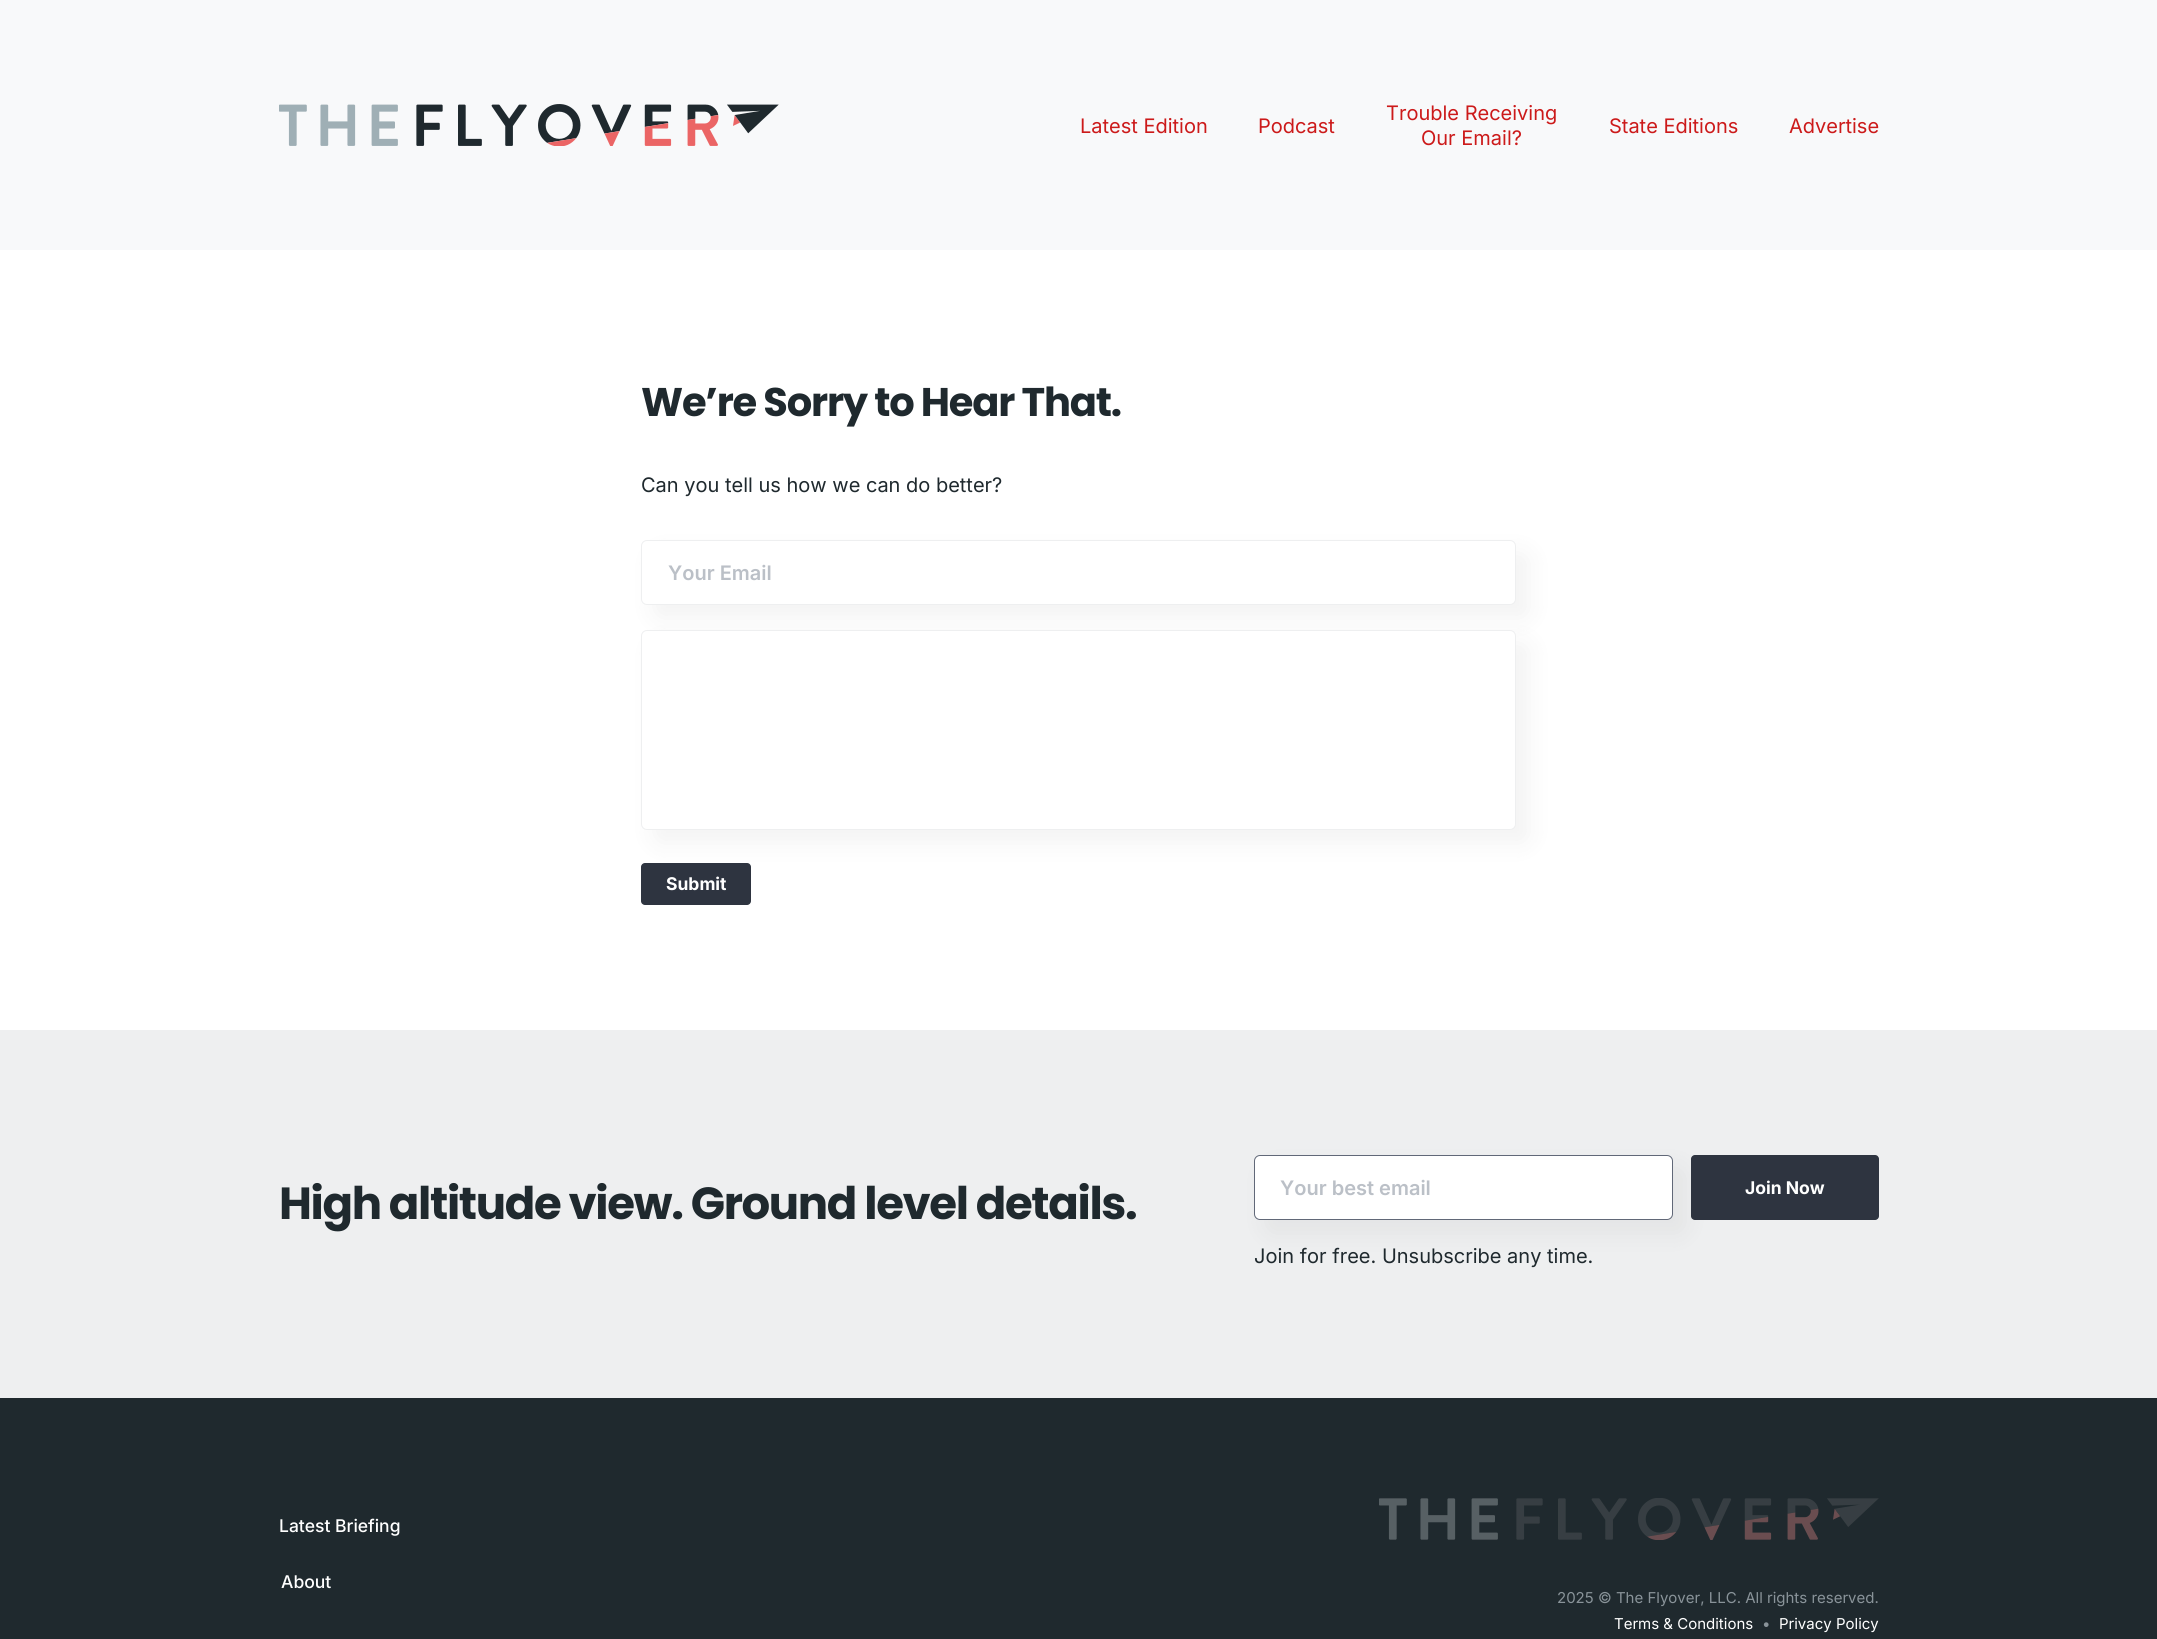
#include <cairo.h>
#include <math.h>
#include <stddef.h>


static void rgb(cairo_t *cr, int r, int g, int b)
{
	cairo_set_source_rgb(cr, r / 255.0, g / 255.0, b / 255.0);
}

static void face(cairo_t *cr, const char *family, double size, int italic, int bold)
{
	cairo_select_font_face(cr, family, italic ? CAIRO_FONT_SLANT_ITALIC : CAIRO_FONT_SLANT_NORMAL,
		bold ? CAIRO_FONT_WEIGHT_BOLD : CAIRO_FONT_WEIGHT_NORMAL);
	cairo_set_font_size(cr, size);
}

static void label(cairo_t *cr, double x, double y, const char *s)
{
	cairo_move_to(cr, x, y);
	cairo_show_text(cr, s);
}

static void tracked(cairo_t *cr, double x, double y, const char *s, double letter, double word)
{
	cairo_move_to(cr, x, y);
	while (*s) {
		char ch[5] = {0};
		int n = 0;
		do ch[n++] = *s++; while ((*s & 0xC0) == 0x80);
		cairo_show_text(cr, ch);
		cairo_rel_move_to(cr, letter + word * (*ch == ' '), 0);
	}
}

static void rect(cairo_t *cr, double x, double y, double w, double h)
{
	cairo_rectangle(cr, x, y, w, h);
	cairo_fill(cr);
}

static void rrect(cairo_t *cr, double x, double y, double w, double h, double r)
{
	cairo_new_sub_path(cr);
	cairo_arc(cr, x + w - r, y + h - r, r, 0, M_PI / 2);
	cairo_arc(cr, x + r, y + h - r, r, M_PI / 2, M_PI);
	cairo_arc(cr, x + r, y + r, r, M_PI, 1.5 * M_PI);
	cairo_arc(cr, x + w - r, y + r, r, 1.5 * M_PI, 2 * M_PI);
	cairo_close_path(cr);
}

static void soft_shadow(cairo_t *cr, double x, double y, double w, double h, double r, double blur, double alpha)
{
	cairo_push_group_with_content(cr, CAIRO_CONTENT_ALPHA);
	cairo_set_operator(cr, CAIRO_OPERATOR_SOURCE);
	for (int i = 15; i >= -15 && fmin(w, h) + blur * i / 3 > 0; i -= 2) {
		double e = blur * i / 6;
		cairo_set_source_rgba(cr, 0, 0, 0, alpha * erfc((i - 1) / 8.5) / 2);
		rrect(cr, x - e, y - e, w + 2 * e, h + 2 * e, fmax(0, fmin(r + e + blur * .6, fmin(w, h) / 2 + e)));
		cairo_fill(cr);
	}
	cairo_pattern_t *soft = cairo_pop_group(cr);
	cairo_mask(cr, soft);
	cairo_pattern_destroy(soft);
}

static void image(cairo_t *cr, const char *path, double x, double y, double w, double h)
{
	cairo_surface_t *image = cairo_image_surface_create_from_png(path);
	cairo_save(cr);
	cairo_set_source_surface(cr, image, x, y);
	cairo_rectangle(cr, x, y, w, h);
	cairo_fill(cr);
	cairo_restore(cr);
	cairo_surface_destroy(image);
}

static void draw(cairo_t *cr) {
	rgb(cr, 248, 249, 250);
	cairo_paint(cr);
	image(cr, "image0.png", 279, 104, 500, 42);
	face(cr, "Inter", 20, 0, 0);
	rgb(cr, 204, 26, 26);
	label(cr, 1080, 133, "Latest Edition");
	label(cr, 1258, 133, "Podcast");
	label(cr, 1386, 120, "Trouble Receiving");
	label(cr, 1421, 145, "Our Email?");
	label(cr, 1609, 133, "State Editions");
	label(cr, 1789, 133, "Advertise");
	rgb(cr, 255, 255, 255);
	rect(cr, 0, 250, 2157, 780);
	face(cr, "Poppins", 40, 0, 1);
	rgb(cr, 31, 41, 46);
	tracked(cr, 641, 416, "We’re Sorry to Hear That.", -1.2, 0);
	face(cr, "Inter", 20, 0, 0);
	label(cr, 641, 492, "Can you tell us how we can do better?");
	rgb(cr, 0, 0, 0);
	soft_shadow(cr, 654, 553, 875, 65, 6, 12.5, 0.05);
	rgb(cr, 255, 255, 255);
	rrect(cr, 641.5, 540.5, 874, 64, 5.5);
	cairo_fill_preserve(cr);
	rgb(cr, 238, 239, 240);
	cairo_set_line_width(cr, 1);
	cairo_stroke(cr);
	face(cr, "Inter SemiBold", 20, 0, 0);
	rgb(cr, 187, 192, 199);
	label(cr, 668, 580, "Your Email");
	rgb(cr, 0, 0, 0);
	soft_shadow(cr, 654, 643, 875, 200, 6, 12.5, 0.05);
	rgb(cr, 255, 255, 255);
	rrect(cr, 641.5, 630.5, 874, 199, 5.5);
	cairo_fill_preserve(cr);
	rgb(cr, 238, 239, 240);
	cairo_stroke(cr);
	rgb(cr, 46, 52, 64);
	rrect(cr, 641, 863, 110, 42, 4);
	cairo_fill(cr);
	face(cr, "Inter", 17.5, 0, 1);
	rgb(cr, 255, 255, 255);
	label(cr, 666, 890, "Submit");
	rgb(cr, 238, 239, 240);
	rect(cr, 0, 1030, 2157, 368);
	face(cr, "Poppins", 45, 0, 1);
	rgb(cr, 31, 41, 46);
	tracked(cr, 279, 1219, "High altitude view. Ground level details.", -1.35, 0);
	rgb(cr, 0, 0, 0);
	soft_shadow(cr, 1266, 1168, 419, 65, 6, 12.5, 0.05);
	rgb(cr, 255, 255, 255);
	rrect(cr, 1254.5, 1155.5, 418, 64, 5.5);
	cairo_fill_preserve(cr);
	rgb(cr, 97, 104, 120);
	cairo_stroke(cr);
	face(cr, "Inter SemiBold", 20, 0, 0);
	rgb(cr, 187, 192, 199);
	label(cr, 1280, 1195, "Your best email");
	rgb(cr, 46, 52, 64);
	rrect(cr, 1691, 1155, 188, 65, 4);
	cairo_fill(cr);
	face(cr, "Inter", 17.5, 0, 1);
	rgb(cr, 255, 255, 255);
	label(cr, 1745, 1194, "Join Now");
	face(cr, "Inter", 20, 0, 0);
	rgb(cr, 31, 41, 46);
	label(cr, 1254, 1263, "Join for free. Unsubscribe any time.");
	rect(cr, 0, 1398, 2157, 241);
	face(cr, "Inter Medium", 17.5, 0, 0);
	rgb(cr, 255, 255, 255);
	label(cr, 279, 1532, "Latest Briefing");
	label(cr, 281, 1588, "About");
	image(cr, "image1.png", 1379, 1498, 500, 42);
	face(cr, "Inter", 15, 0, 0);
	rgb(cr, 137, 147, 153);
	label(cr, 1557, 1603, "2025");
	label(cr, 1598, 1603, "© The Flyover, LLC. All rights reserved.");
	rgb(cr, 255, 255, 255);
	label(cr, 1614, 1629, "Terms & Conditions");
	rgb(cr, 137, 147, 153);
	label(cr, 1762, 1629, "•");
	rgb(cr, 255, 255, 255);
	label(cr, 1779, 1629, "Privacy Policy");
}

int main(void) {
	cairo_surface_t *surface = cairo_image_surface_create(CAIRO_FORMAT_RGB24, 2157, 1639);
	cairo_t *cr = cairo_create(surface);
	cairo_font_options_t *options = cairo_font_options_create();
	cairo_font_options_set_hint_metrics(options, CAIRO_HINT_METRICS_OFF);
	cairo_font_options_set_hint_style(options, CAIRO_HINT_STYLE_NONE);
	cairo_set_font_options(cr, options);
	cairo_set_miter_limit(cr, 4);
	draw(cr);
	cairo_surface_write_to_png(surface, "render.png");
	cairo_font_options_destroy(options);
	cairo_destroy(cr);
	cairo_surface_destroy(surface);
	return 0;
}
